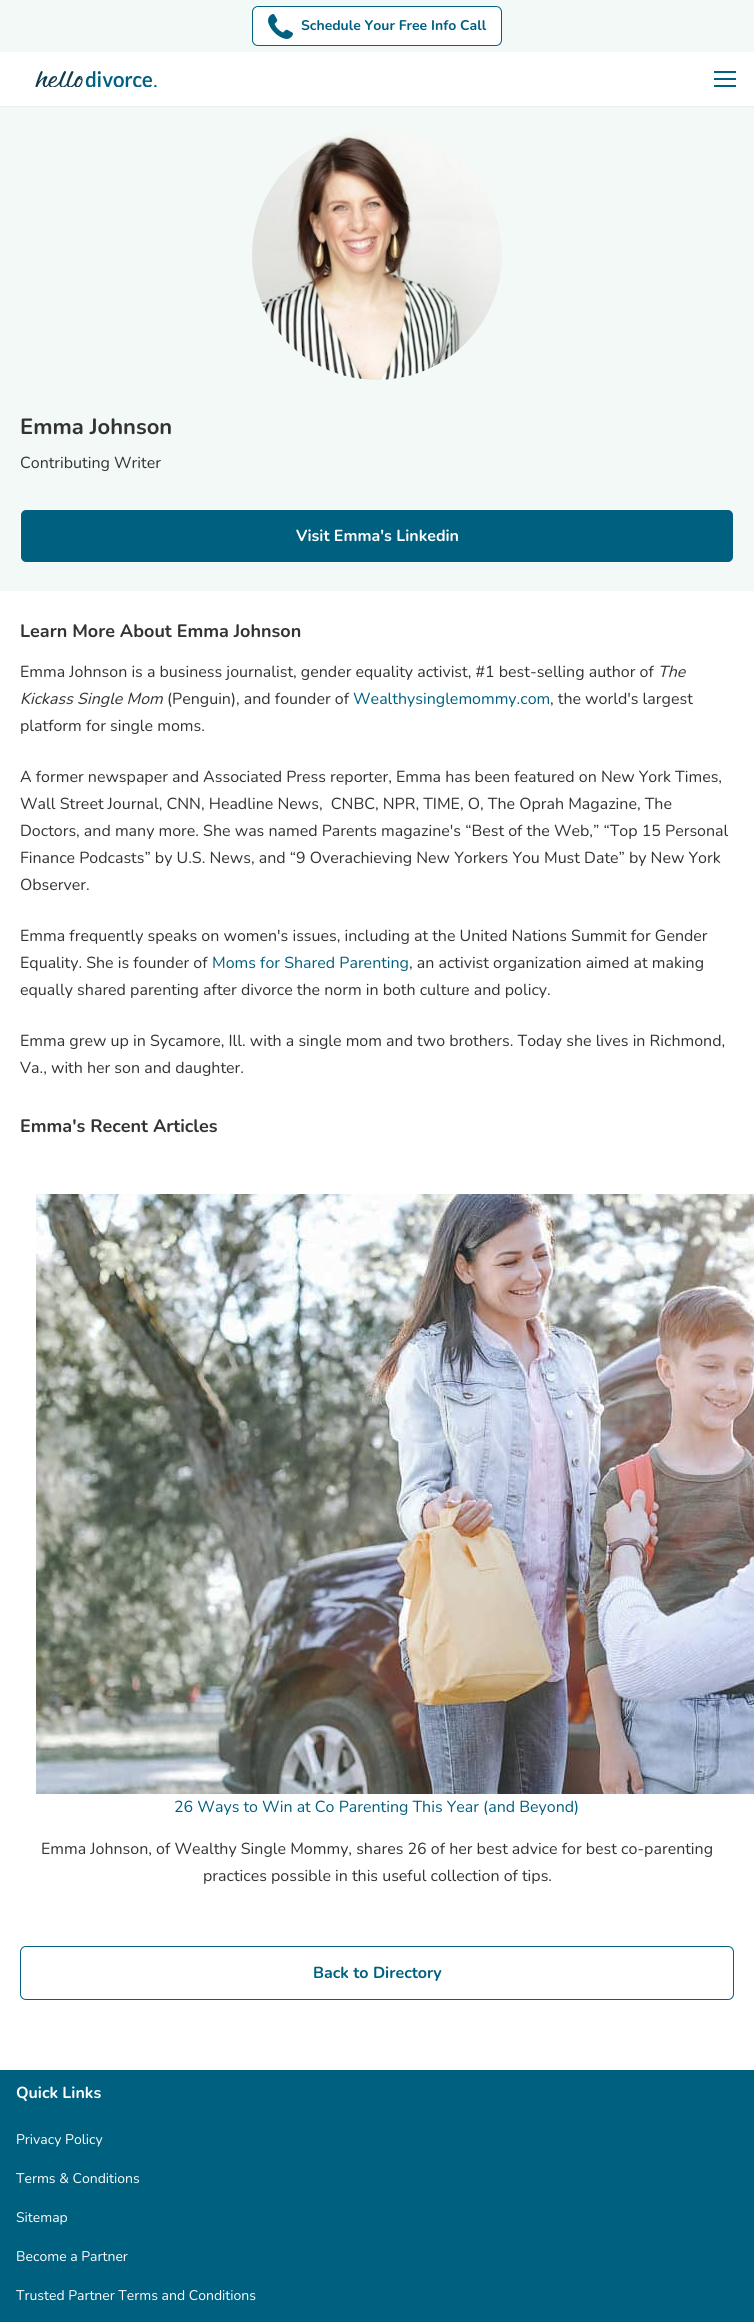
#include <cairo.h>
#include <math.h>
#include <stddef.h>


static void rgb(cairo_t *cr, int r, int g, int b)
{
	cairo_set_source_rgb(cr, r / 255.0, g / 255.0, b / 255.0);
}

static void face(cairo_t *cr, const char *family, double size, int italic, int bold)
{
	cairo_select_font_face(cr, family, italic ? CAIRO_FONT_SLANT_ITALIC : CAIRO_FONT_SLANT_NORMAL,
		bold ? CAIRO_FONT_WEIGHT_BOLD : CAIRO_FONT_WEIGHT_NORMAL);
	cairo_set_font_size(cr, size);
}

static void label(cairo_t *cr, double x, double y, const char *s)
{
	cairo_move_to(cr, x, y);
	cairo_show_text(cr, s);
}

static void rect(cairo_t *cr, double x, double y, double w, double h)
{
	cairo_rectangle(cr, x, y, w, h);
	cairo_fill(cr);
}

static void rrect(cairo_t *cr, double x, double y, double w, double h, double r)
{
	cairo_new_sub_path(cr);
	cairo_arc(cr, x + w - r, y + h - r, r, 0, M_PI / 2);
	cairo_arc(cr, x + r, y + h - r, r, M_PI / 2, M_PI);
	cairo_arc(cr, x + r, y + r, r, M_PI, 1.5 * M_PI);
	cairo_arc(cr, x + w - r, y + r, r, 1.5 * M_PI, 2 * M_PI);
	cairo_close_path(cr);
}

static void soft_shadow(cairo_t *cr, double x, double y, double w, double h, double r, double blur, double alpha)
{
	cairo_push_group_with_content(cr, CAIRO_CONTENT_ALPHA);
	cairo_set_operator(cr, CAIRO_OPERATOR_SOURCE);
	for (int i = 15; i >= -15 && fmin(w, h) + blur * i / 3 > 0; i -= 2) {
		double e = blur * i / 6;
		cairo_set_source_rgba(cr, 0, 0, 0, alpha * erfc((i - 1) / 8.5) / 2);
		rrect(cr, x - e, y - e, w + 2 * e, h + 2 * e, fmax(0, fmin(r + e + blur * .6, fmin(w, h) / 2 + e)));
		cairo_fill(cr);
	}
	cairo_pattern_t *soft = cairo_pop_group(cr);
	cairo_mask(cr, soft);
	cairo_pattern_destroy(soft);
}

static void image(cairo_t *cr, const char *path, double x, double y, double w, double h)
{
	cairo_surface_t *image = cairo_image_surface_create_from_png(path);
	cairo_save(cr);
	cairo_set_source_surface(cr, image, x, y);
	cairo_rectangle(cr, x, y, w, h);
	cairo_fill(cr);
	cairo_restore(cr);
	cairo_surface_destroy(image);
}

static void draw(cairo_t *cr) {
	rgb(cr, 255, 255, 255);
	cairo_paint(cr);
	rgb(cr, 242, 249, 247);
	rect(cr, 0, 106, 754, 485);
	rgb(cr, 0, 0, 0);
	soft_shadow(cr, 0, 0, 754, 106, 0, 1.5, 0.08);
	rgb(cr, 255, 255, 255);
	rect(cr, 0, 52, 754, 54);
	rgb(cr, 242, 249, 247);
	rect(cr, 0, 0, 754, 52);
	rgb(cr, 255, 255, 255);
	rrect(cr, 252.5, 6.5, 249, 39, 5.5);
	cairo_fill_preserve(cr);
	rgb(cr, 0, 96, 128);
	cairo_set_line_width(cr, 1);
	cairo_stroke(cr);
	image(cr, "image0.png", 268, 14, 25, 25);
	face(cr, "Nunito", 14, 0, 1);
	label(cr, 301, 30, "Schedule Your Free Info Call");
	image(cr, "image1.png", 35, 71, 122, 16);
	rect(cr, 714, 71, 22, 2);
	rect(cr, 714, 78, 22, 2);
	rect(cr, 714, 85, 22, 2);
	image(cr, "image2.png", 252, 130, 250, 250);
	face(cr, "Nunito", 22, 0, 1);
	rgb(cr, 51, 51, 51);
	label(cr, 20, 434, "Emma Johnson");
	face(cr, "Nunito", 16, 0, 0);
	label(cr, 20, 468, "Contributing Writer");
	rgb(cr, 0, 96, 128);
	rrect(cr, 20.5, 509.5, 713, 53, 5.5);
	cairo_fill_preserve(cr);
	rgb(cr, 255, 255, 255);
	cairo_stroke(cr);
	face(cr, "Nunito", 16, 0, 1);
	label(cr, 296, 541, "Visit Emma's Linkedin");
	face(cr, "Nunito", 18, 0, 1);
	rgb(cr, 51, 51, 51);
	label(cr, 20, 637, "Learn More About Emma Johnson");
	face(cr, "Nunito", 16, 0, 0);
	label(cr, 20, 677, "Emma Johnson is a business journalist, gender equality activist, #1 best-selling author of");
	face(cr, "Nunito", 16, 1, 0);
	label(cr, 658, 677, "The");
	label(cr, 20, 704, "Kickass Single Mom");
	face(cr, "Nunito", 16, 0, 0);
	label(cr, 167, 704, "(Penguin), and founder of");
	rgb(cr, 0, 96, 128);
	label(cr, 353, 704, "Wealthysinglemommy.com");
	rgb(cr, 51, 51, 51);
	label(cr, 550, 704, ", the world's largest");
	label(cr, 20, 731, "platform for single moms.");
	label(cr, 20, 782, "A former newspaper and Associated Press reporter, Emma has been featured on New York Times,");
	label(cr, 20, 809, "Wall Street Journal, CNN, Headline News,  CNBC, NPR, TIME, O, The Oprah Magazine, The");
	label(cr, 20, 836, "Doctors, and many more. She was named Parents magazine's “Best of the Web,” “Top 15 Personal");
	label(cr, 20, 863, "Finance Podcasts” by U.S. News, and “9 Overachieving New Yorkers You Must Date” by New York");
	label(cr, 20, 890, "Observer.");
	label(cr, 20, 941, "Emma frequently speaks on women's issues, including at the United Nations Summit for Gender");
	label(cr, 20, 968, "Equality. She is founder of");
	rgb(cr, 0, 96, 128);
	label(cr, 212, 968, "Moms for Shared Parenting");
	rgb(cr, 51, 51, 51);
	label(cr, 409, 968, ", an activist organization aimed at making");
	label(cr, 20, 995, "equally shared parenting after divorce the norm in both culture and policy.");
	label(cr, 20, 1046, "Emma grew up in Sycamore, Ill. with a single mom and two brothers. Today she lives in Richmond,");
	label(cr, 20, 1073, "Va., with her son and daughter.");
	face(cr, "Nunito", 18, 0, 1);
	label(cr, 20, 1132, "Emma's Recent Articles");
	image(cr, "image3.png", 36, 1194, 718, 600);
	face(cr, "Nunito", 16, 0, 0);
	rgb(cr, 0, 96, 128);
	label(cr, 174, 1812, "26 Ways to Win at Co Parenting This Year (and Beyond)");
	rgb(cr, 51, 51, 51);
	label(cr, 41, 1854, "Emma Johnson, of Wealthy Single Mommy, shares 26 of her best advice for best co-parenting");
	label(cr, 203, 1881, "practices possible in this useful collection of tips.");
	rrect(cr, 20.5, 1946.5, 713, 53, 5.5);
	rgb(cr, 0, 96, 128);
	cairo_stroke(cr);
	face(cr, "Nunito", 16, 0, 1);
	label(cr, 313, 1978, "Back to Directory");
	rect(cr, 0, 2070, 754, 252);
	rgb(cr, 255, 255, 255);
	label(cr, 16, 2098, "Quick Links");
	face(cr, "Nunito", 14, 0, 0);
	label(cr, 16, 2144, "Privacy Policy");
	label(cr, 16, 2183, "Terms & Conditions");
	label(cr, 16, 2222, "Sitemap");
	label(cr, 16, 2261, "Become a Partner");
	label(cr, 16, 2300, "Trusted Partner Terms and Conditions");
}

int main(void) {
	cairo_surface_t *surface = cairo_image_surface_create(CAIRO_FORMAT_RGB24, 754, 2322);
	cairo_t *cr = cairo_create(surface);
	cairo_font_options_t *options = cairo_font_options_create();
	cairo_font_options_set_hint_metrics(options, CAIRO_HINT_METRICS_OFF);
	cairo_font_options_set_hint_style(options, CAIRO_HINT_STYLE_NONE);
	cairo_set_font_options(cr, options);
	cairo_set_miter_limit(cr, 4);
	draw(cr);
	cairo_surface_write_to_png(surface, "render.png");
	cairo_font_options_destroy(options);
	cairo_destroy(cr);
	cairo_surface_destroy(surface);
	return 0;
}
